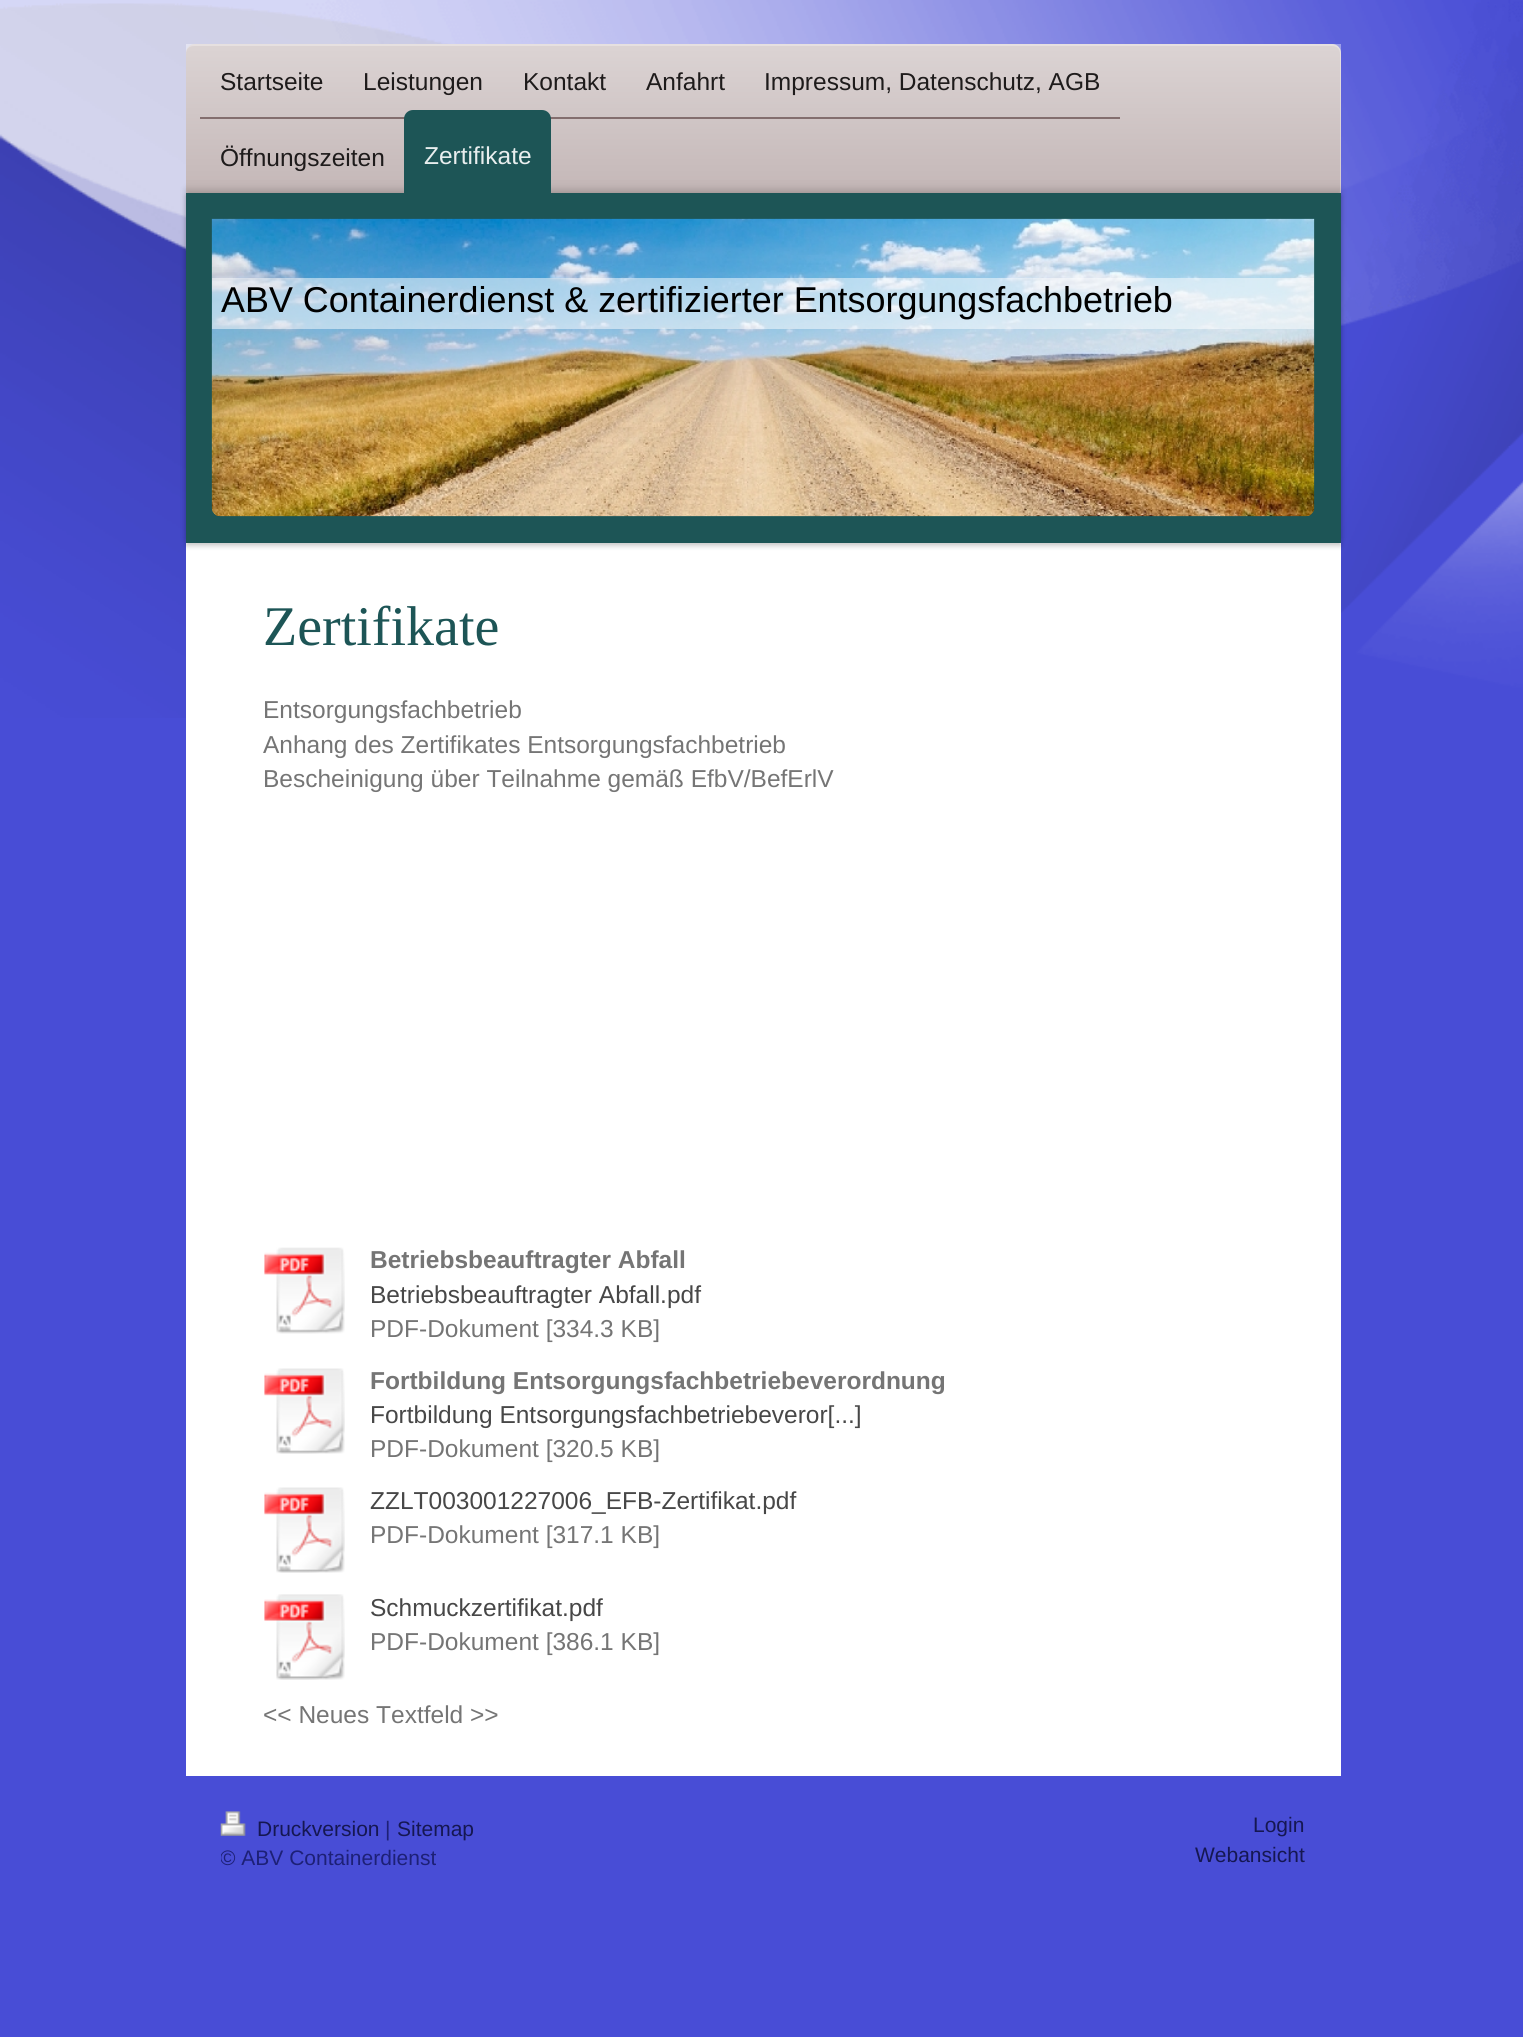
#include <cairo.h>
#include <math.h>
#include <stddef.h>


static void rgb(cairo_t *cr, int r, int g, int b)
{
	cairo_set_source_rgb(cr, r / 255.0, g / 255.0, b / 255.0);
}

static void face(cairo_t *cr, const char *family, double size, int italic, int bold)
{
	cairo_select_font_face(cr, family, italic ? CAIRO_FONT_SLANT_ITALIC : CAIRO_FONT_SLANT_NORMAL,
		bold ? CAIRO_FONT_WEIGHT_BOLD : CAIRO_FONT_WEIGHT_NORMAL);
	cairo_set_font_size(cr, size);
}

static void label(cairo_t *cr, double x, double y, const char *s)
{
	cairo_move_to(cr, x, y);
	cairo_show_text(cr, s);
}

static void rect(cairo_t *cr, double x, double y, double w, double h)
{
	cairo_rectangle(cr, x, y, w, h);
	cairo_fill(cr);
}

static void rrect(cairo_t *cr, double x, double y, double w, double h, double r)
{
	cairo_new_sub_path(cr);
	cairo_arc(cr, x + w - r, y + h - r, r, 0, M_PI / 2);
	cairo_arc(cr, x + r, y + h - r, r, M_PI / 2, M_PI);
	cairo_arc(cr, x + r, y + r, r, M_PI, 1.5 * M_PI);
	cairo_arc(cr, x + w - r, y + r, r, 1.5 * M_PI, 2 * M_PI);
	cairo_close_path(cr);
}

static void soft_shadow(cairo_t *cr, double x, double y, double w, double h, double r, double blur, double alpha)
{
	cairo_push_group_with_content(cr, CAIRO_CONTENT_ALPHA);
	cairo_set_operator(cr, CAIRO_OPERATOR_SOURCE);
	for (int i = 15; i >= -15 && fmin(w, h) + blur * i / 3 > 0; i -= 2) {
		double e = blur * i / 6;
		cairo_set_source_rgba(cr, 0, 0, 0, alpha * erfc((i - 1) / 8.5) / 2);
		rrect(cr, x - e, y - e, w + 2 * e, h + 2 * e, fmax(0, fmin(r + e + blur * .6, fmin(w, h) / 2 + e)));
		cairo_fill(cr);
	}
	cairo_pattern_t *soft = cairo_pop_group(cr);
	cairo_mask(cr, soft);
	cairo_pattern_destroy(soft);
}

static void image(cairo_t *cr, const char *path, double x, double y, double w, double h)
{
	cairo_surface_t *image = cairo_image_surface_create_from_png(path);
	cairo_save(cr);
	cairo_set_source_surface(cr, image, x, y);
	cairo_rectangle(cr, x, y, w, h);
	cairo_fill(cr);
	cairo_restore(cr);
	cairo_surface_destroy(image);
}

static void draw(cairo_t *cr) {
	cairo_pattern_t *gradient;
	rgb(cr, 72, 77, 214);
	cairo_paint(cr);
	image(cr, "image0.png", 0, 0, 1523, 718);
	rgb(cr, 196, 183, 183);
	cairo_new_path(cr);
	cairo_move_to(cr, 195, 44);
	cairo_line_to(cr, 1332, 44);
	cairo_curve_to(cr, 1337, 44, 1341, 48, 1341, 53);
	cairo_line_to(cr, 1341, 194);
	cairo_line_to(cr, 186, 194);
	cairo_line_to(cr, 186, 53);
	cairo_curve_to(cr, 186, 48, 190, 44, 195, 44);
	cairo_close_path(cr);
	cairo_fill(cr);
	cairo_set_source_rgba(cr, 1, 1, 1, 0.3);
	cairo_new_path(cr);
	cairo_move_to(cr, 194, 46);
	cairo_line_to(cr, 1332, 46);
	cairo_curve_to(cr, 1337, 46, 1340, 49, 1340, 54);
	cairo_line_to(cr, 1340, 194);
	cairo_line_to(cr, 1341, 194);
	cairo_line_to(cr, 1341, 53);
	cairo_curve_to(cr, 1341, 48, 1337, 44, 1332, 44);
	cairo_line_to(cr, 195, 44);
	cairo_curve_to(cr, 190, 44, 186, 48, 186, 53);
	cairo_line_to(cr, 186, 54);
	cairo_curve_to(cr, 186, 49, 189, 46, 194, 46);
	cairo_close_path(cr);
	cairo_fill(cr);
	gradient = cairo_pattern_create_linear(165, 44, 165, 194);
	cairo_pattern_add_color_stop_rgba(gradient, 0, 1, 1, 1, 0.4);
	cairo_pattern_add_color_stop_rgba(gradient, 1, 1, 1, 1, 0);
	cairo_set_source(cr, gradient);
	cairo_pattern_destroy(gradient);
	rect(cr, 186, 44, 1155, 136);
	rgb(cr, 131, 110, 110);
	rect(cr, 200, 117, 205, 2);
	face(cr, "Liberation Sans", 24.5, 0, 0);
	rgb(cr, 30, 27, 27);
	label(cr, 220, 90, "Startseite");
	label(cr, 363, 90, "Leistungen");
	rgb(cr, 131, 110, 110);
	rect(cr, 550, 117, 570, 2);
	rgb(cr, 30, 27, 27);
	label(cr, 523, 90, "Kontakt");
	label(cr, 646, 90, "Anfahrt");
	label(cr, 764, 90, "Impressum, Datenschutz, AGB");
	label(cr, 220, 166, "Öffnungszeiten");
	rgb(cr, 255, 255, 255);
	rect(cr, 186, 543, 1155, 1233);
	rgb(cr, 0, 0, 0);
	soft_shadow(cr, 186, 189, 1155, 350, 0, 3.5, 0.15);
	soft_shadow(cr, 186, 196, 1155, 350, 0, 2.5, 0.2);
	rgb(cr, 29, 85, 86);
	rect(cr, 186, 193, 1155, 350);
	cairo_new_path(cr);
	cairo_move_to(cr, 413, 110);
	cairo_line_to(cr, 542, 110);
	cairo_curve_to(cr, 547, 110, 551, 114, 551, 119);
	cairo_line_to(cr, 551, 194);
	cairo_line_to(cr, 404, 194);
	cairo_line_to(cr, 404, 119);
	cairo_curve_to(cr, 404, 114, 408, 110, 413, 110);
	cairo_close_path(cr);
	cairo_fill(cr);
	rgb(cr, 232, 238, 238);
	label(cr, 424, 164, "Zertifikate");
	image(cr, "image1.png", 211, 218, 1104, 299);
	image(cr, "image2.png", 211, 218, 1104, 299);
	cairo_set_source_rgba(cr, 1, 1, 1, 0.5);
	rect(cr, 212, 278, 1102, 51);
	face(cr, "Liberation Sans", 35.9, 0, 0);
	rgb(cr, 0, 0, 0);
	label(cr, 221, 312, "ABV Containerdienst & zertifizierter Entsorgungsfachbetrieb");
	face(cr, "Liberation Serif", 56, 0, 0);
	rgb(cr, 29, 85, 86);
	label(cr, 263, 645, "Zertifikate");
	face(cr, "Liberation Sans", 24.5, 0, 0);
	rgb(cr, 117, 117, 117);
	label(cr, 263, 718, "Entsorgungsfachbetrieb");
	label(cr, 263, 753, "Anhang des Zertifikates Entsorgungsfachbetrieb");
	label(cr, 263, 787, "Bescheinigung über Teilnahme gemäß EfbV/BefErlV");
	image(cr, "image3.png", 264, 1247, 81, 87);
	face(cr, "Liberation Sans", 24.5, 0, 1);
	label(cr, 370, 1268, "Betriebsbeauftragter Abfall");
	face(cr, "Liberation Sans", 24.5, 0, 0);
	rgb(cr, 71, 71, 71);
	label(cr, 370, 1303, "Betriebsbeauftragter Abfall.pdf");
	rgb(cr, 117, 117, 117);
	label(cr, 370, 1337, "PDF-Dokument [334.3 KB]");
	image(cr, "image4.png", 264, 1368, 81, 86);
	face(cr, "Liberation Sans", 24.5, 0, 1);
	label(cr, 370, 1389, "Fortbildung Entsorgungsfachbetriebeverordnung");
	face(cr, "Liberation Sans", 24.5, 0, 0);
	rgb(cr, 71, 71, 71);
	label(cr, 370, 1423, "Fortbildung Entsorgungsfachbetriebeveror[...]");
	rgb(cr, 117, 117, 117);
	label(cr, 370, 1457, "PDF-Dokument [320.5 KB]");
	image(cr, "image4.png", 264, 1487, 81, 86);
	rgb(cr, 71, 71, 71);
	label(cr, 370, 1509, "ZZLT003001227006_EFB-Zertifikat.pdf");
	rgb(cr, 117, 117, 117);
	label(cr, 370, 1543, "PDF-Dokument [317.1 KB]");
	image(cr, "image5.png", 264, 1594, 81, 86);
	rgb(cr, 71, 71, 71);
	label(cr, 370, 1616, "Schmuckzertifikat.pdf");
	rgb(cr, 117, 117, 117);
	label(cr, 370, 1650, "PDF-Dokument [386.1 KB]");
	label(cr, 263, 1723, "<< Neues Textfeld >>");
	image(cr, "image6.png", 220, 1811, 26, 25);
	face(cr, "Liberation Sans", 21, 0, 0);
	rgb(cr, 21, 23, 82);
	label(cr, 257, 1836, "Druckversion");
	rgb(cr, 29, 32, 119);
	label(cr, 385, 1836, "|");
	rgb(cr, 21, 23, 82);
	label(cr, 397, 1836, "Sitemap");
	cairo_save(cr);
	cairo_rectangle(cr, 221, 1811, 1085, 63);
	cairo_clip(cr);
	rgb(cr, 29, 32, 119);
	label(cr, 220, 1865, "© ABV Containerdienst");
	cairo_restore(cr);
	label(cr, 1253, 1832, "Login");
	label(cr, 1195, 1862, "Webansicht");
}

int main(void) {
	cairo_surface_t *surface = cairo_image_surface_create(CAIRO_FORMAT_RGB24, 1523, 2037);
	cairo_t *cr = cairo_create(surface);
	cairo_font_options_t *options = cairo_font_options_create();
	cairo_font_options_set_hint_metrics(options, CAIRO_HINT_METRICS_OFF);
	cairo_font_options_set_hint_style(options, CAIRO_HINT_STYLE_NONE);
	cairo_set_font_options(cr, options);
	cairo_set_miter_limit(cr, 4);
	draw(cr);
	cairo_surface_write_to_png(surface, "render.png");
	cairo_font_options_destroy(options);
	cairo_destroy(cr);
	cairo_surface_destroy(surface);
	return 0;
}
